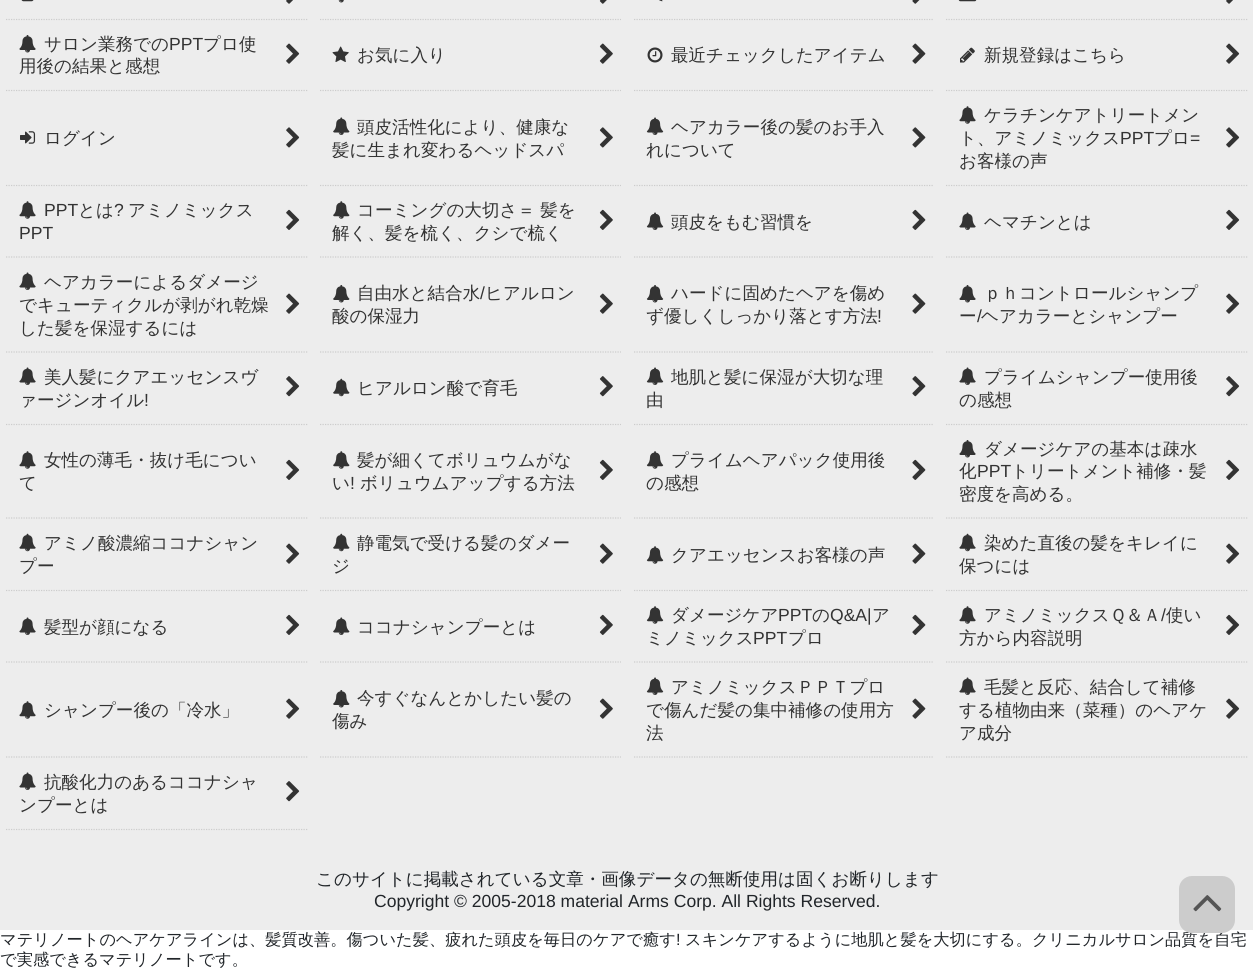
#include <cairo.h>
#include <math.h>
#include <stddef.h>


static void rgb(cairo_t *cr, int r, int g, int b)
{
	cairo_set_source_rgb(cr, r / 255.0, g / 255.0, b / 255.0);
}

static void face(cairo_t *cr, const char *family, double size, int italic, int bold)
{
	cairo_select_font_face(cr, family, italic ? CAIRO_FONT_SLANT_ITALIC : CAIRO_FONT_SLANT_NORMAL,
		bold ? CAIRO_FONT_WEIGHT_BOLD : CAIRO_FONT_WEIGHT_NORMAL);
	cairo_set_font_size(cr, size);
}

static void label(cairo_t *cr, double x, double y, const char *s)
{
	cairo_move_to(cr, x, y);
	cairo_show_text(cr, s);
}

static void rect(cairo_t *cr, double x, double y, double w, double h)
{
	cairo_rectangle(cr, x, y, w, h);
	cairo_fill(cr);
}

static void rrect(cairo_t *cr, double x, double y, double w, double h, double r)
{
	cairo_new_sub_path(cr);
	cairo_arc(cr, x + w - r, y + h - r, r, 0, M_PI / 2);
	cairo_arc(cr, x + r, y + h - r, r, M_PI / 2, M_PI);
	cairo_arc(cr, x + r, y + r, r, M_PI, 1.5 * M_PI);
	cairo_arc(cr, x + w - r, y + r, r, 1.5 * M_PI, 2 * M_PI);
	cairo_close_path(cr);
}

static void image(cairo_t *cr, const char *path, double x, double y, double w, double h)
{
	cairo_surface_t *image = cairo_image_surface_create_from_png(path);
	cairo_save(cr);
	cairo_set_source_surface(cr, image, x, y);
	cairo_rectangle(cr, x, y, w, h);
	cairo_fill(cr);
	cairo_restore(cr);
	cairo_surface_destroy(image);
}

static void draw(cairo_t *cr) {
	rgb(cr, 255, 255, 255);
	cairo_paint(cr);
	rgb(cr, 237, 237, 237);
	rect(cr, 0, 0, 1253, 930);
	cairo_new_path(cr);
	cairo_move_to(cr, 6, 19.5);
	cairo_line_to(cr, 307.5, 19.5);
	rgb(cr, 204, 204, 204);
	cairo_set_line_width(cr, 1.2);
	cairo_set_dash(cr, (double[]){1.25, 1.25}, 2, 0);
	cairo_stroke(cr);
	image(cr, "image0.png", 21, 0, 13, 2);
	image(cr, "image1.png", 286, 0, 7, 4);
	cairo_new_path(cr);
	cairo_move_to(cr, 320, 19.5);
	cairo_line_to(cr, 621, 19.5);
	cairo_stroke(cr);
	image(cr, "image2.png", 338, 0, 6, 3);
	image(cr, "image3.png", 599, 0, 8, 4);
	cairo_new_path(cr);
	cairo_move_to(cr, 634, 19.5);
	cairo_line_to(cr, 934, 19.5);
	cairo_stroke(cr);
	image(cr, "image4.png", 659, 0, 4, 2);
	image(cr, "image5.png", 912, 0, 8, 4);
	cairo_new_path(cr);
	cairo_move_to(cr, 946, 19.5);
	cairo_line_to(cr, 1247.5, 19.5);
	cairo_stroke(cr);
	image(cr, "image6.png", 958, 0, 19, 2);
	image(cr, "image1.png", 1226, 0, 7, 4);
	cairo_new_path(cr);
	cairo_move_to(cr, 6, 90.5);
	cairo_line_to(cr, 307.5, 90.5);
	cairo_stroke(cr);
	image(cr, "image7.png", 19, 35, 17, 18);
	face(cr, "WenQuanYi Zen Hei Medium", 17.55, 0, 0);
	rgb(cr, 51, 51, 51);
	label(cr, 44, 50, "サロン業務での");
	face(cr, "Liberation Sans", 17.55, 0, 0);
	label(cr, 169, 50, "PPT");
	face(cr, "WenQuanYi Zen Hei Medium", 17.55, 0, 0);
	label(cr, 203, 50, "プロ使");
	image(cr, "image8.png", 286, 43, 14, 21);
	label(cr, 19, 72, "用後の結果と感想");
	cairo_new_path(cr);
	cairo_move_to(cr, 320, 90.5);
	cairo_line_to(cr, 621, 90.5);
	rgb(cr, 204, 204, 204);
	cairo_stroke(cr);
	image(cr, "image9.png", 332, 46, 17, 16);
	rgb(cr, 51, 51, 51);
	label(cr, 357, 61, "お気に入り");
	image(cr, "image10.png", 599, 43, 14, 21);
	cairo_new_path(cr);
	cairo_move_to(cr, 634, 90.5);
	cairo_line_to(cr, 934, 90.5);
	rgb(cr, 204, 204, 204);
	cairo_stroke(cr);
	image(cr, "image11.png", 647, 47, 16, 16);
	rgb(cr, 51, 51, 51);
	label(cr, 671, 61, "最近チェックしたアイテム");
	image(cr, "image12.png", 912, 43, 14, 21);
	cairo_new_path(cr);
	cairo_move_to(cr, 946, 90.5);
	cairo_line_to(cr, 1247.5, 90.5);
	rgb(cr, 204, 204, 204);
	cairo_stroke(cr);
	image(cr, "image13.png", 960, 47, 15, 16);
	rgb(cr, 51, 51, 51);
	label(cr, 984, 61, "新規登録はこちら");
	image(cr, "image8.png", 1226, 43, 14, 21);
	cairo_new_path(cr);
	cairo_move_to(cr, 6, 185.5);
	cairo_line_to(cr, 307.5, 185.5);
	rgb(cr, 204, 204, 204);
	cairo_stroke(cr);
	image(cr, "image14.png", 20, 131, 16, 13);
	rgb(cr, 51, 51, 51);
	label(cr, 44, 144, "ログイン");
	image(cr, "image15.png", 286, 127, 14, 21);
	cairo_new_path(cr);
	cairo_move_to(cr, 320, 185.5);
	cairo_line_to(cr, 621, 185.5);
	rgb(cr, 204, 204, 204);
	cairo_stroke(cr);
	image(cr, "image16.png", 333, 117, 17, 18);
	rgb(cr, 51, 51, 51);
	label(cr, 357, 133, "頭皮活性化により、健康な");
	image(cr, "image17.png", 599, 127, 14, 21);
	label(cr, 332, 156, "髪に生まれ変わるヘッドスパ");
	cairo_new_path(cr);
	cairo_move_to(cr, 634, 185.5);
	cairo_line_to(cr, 934, 185.5);
	rgb(cr, 204, 204, 204);
	cairo_stroke(cr);
	image(cr, "image18.png", 646, 117, 18, 18);
	rgb(cr, 51, 51, 51);
	label(cr, 671, 133, "ヘアカラー後の髪のお手入");
	image(cr, "image19.png", 912, 127, 14, 21);
	label(cr, 646, 156, "れについて");
	cairo_new_path(cr);
	cairo_move_to(cr, 946, 185.5);
	cairo_line_to(cr, 1247.5, 185.5);
	rgb(cr, 204, 204, 204);
	cairo_stroke(cr);
	image(cr, "image20.png", 959, 106, 17, 18);
	rgb(cr, 51, 51, 51);
	label(cr, 984, 121, "ケラチンケアトリートメン");
	label(cr, 959, 144, "ト、アミノミックス");
	face(cr, "Liberation Sans", 17.55, 0, 0);
	label(cr, 1120, 144, "PPT");
	face(cr, "WenQuanYi Zen Hei Medium", 17.55, 0, 0);
	label(cr, 1154, 144, "プロ");
	face(cr, "Liberation Sans", 17.55, 0, 0);
	label(cr, 1190, 144, "=");
	image(cr, "image15.png", 1226, 127, 14, 21);
	face(cr, "WenQuanYi Zen Hei Medium", 17.55, 0, 0);
	label(cr, 959, 167, "お客様の声");
	cairo_new_path(cr);
	cairo_move_to(cr, 6, 257);
	cairo_line_to(cr, 307.5, 257);
	rgb(cr, 204, 204, 204);
	cairo_stroke(cr);
	image(cr, "image20.png", 19, 201, 17, 18);
	face(cr, "Liberation Sans", 17.55, 0, 0);
	rgb(cr, 51, 51, 51);
	label(cr, 44, 216, "PPT");
	face(cr, "WenQuanYi Zen Hei Medium", 17.55, 0, 0);
	label(cr, 78, 216, "とは");
	face(cr, "Liberation Sans", 17.55, 0, 0);
	label(cr, 114, 216, "?");
	face(cr, "WenQuanYi Zen Hei Medium", 17.55, 0, 0);
	label(cr, 128, 216, "アミノミックス");
	image(cr, "image21.png", 286, 209, 14, 21);
	face(cr, "Liberation Sans", 17.55, 0, 0);
	label(cr, 19, 239, "PPT");
	cairo_new_path(cr);
	cairo_move_to(cr, 320, 257);
	cairo_line_to(cr, 621, 257);
	rgb(cr, 204, 204, 204);
	cairo_stroke(cr);
	image(cr, "image22.png", 333, 201, 17, 18);
	face(cr, "WenQuanYi Zen Hei Medium", 17.55, 0, 0);
	rgb(cr, 51, 51, 51);
	label(cr, 357, 216, "コーミングの大切さ＝ 髪を");
	image(cr, "image23.png", 599, 209, 14, 21);
	label(cr, 332, 239, "解く、髪を梳く、クシで梳く");
	cairo_new_path(cr);
	cairo_move_to(cr, 634, 257);
	cairo_line_to(cr, 934, 257);
	rgb(cr, 204, 204, 204);
	cairo_stroke(cr);
	image(cr, "image18.png", 646, 212, 18, 18);
	rgb(cr, 51, 51, 51);
	label(cr, 671, 228, "頭皮をもむ習慣を");
	image(cr, "image24.png", 912, 209, 14, 21);
	cairo_new_path(cr);
	cairo_move_to(cr, 946, 257);
	cairo_line_to(cr, 1247.5, 257);
	rgb(cr, 204, 204, 204);
	cairo_stroke(cr);
	image(cr, "image25.png", 959, 212, 17, 18);
	rgb(cr, 51, 51, 51);
	label(cr, 984, 228, "ヘマチンとは");
	image(cr, "image21.png", 1226, 209, 14, 21);
	cairo_new_path(cr);
	cairo_move_to(cr, 6, 352);
	cairo_line_to(cr, 307.5, 352);
	rgb(cr, 204, 204, 204);
	cairo_stroke(cr);
	image(cr, "image25.png", 19, 272, 17, 18);
	rgb(cr, 51, 51, 51);
	label(cr, 44, 288, "ヘアカラーによるダメージ");
	label(cr, 19, 311, "でキューティクルが剥がれ乾燥");
	image(cr, "image8.png", 286, 293, 14, 21);
	label(cr, 19, 334, "した髪を保湿するには");
	cairo_new_path(cr);
	cairo_move_to(cr, 320, 352);
	cairo_line_to(cr, 621, 352);
	rgb(cr, 204, 204, 204);
	cairo_stroke(cr);
	image(cr, "image26.png", 333, 285, 17, 18);
	rgb(cr, 51, 51, 51);
	label(cr, 357, 299, "自由水と結合水");
	face(cr, "Liberation Sans", 17.55, 0, 0);
	label(cr, 480, 299, "/");
	face(cr, "WenQuanYi Zen Hei Medium", 17.55, 0, 0);
	label(cr, 485, 299, "ヒアルロン");
	image(cr, "image10.png", 599, 293, 14, 21);
	label(cr, 332, 322, "酸の保湿力");
	cairo_new_path(cr);
	cairo_move_to(cr, 634, 352);
	cairo_line_to(cr, 934, 352);
	rgb(cr, 204, 204, 204);
	cairo_stroke(cr);
	image(cr, "image27.png", 646, 285, 18, 18);
	rgb(cr, 51, 51, 51);
	label(cr, 671, 299, "ハードに固めたヘアを傷め");
	image(cr, "image12.png", 912, 293, 14, 21);
	label(cr, 646, 322, "ず優しくしっかり落とす方法");
	face(cr, "Liberation Sans", 17.55, 0, 0);
	label(cr, 877, 322, "!");
	cairo_new_path(cr);
	cairo_move_to(cr, 946, 352);
	cairo_line_to(cr, 1247.5, 352);
	rgb(cr, 204, 204, 204);
	cairo_stroke(cr);
	image(cr, "image7.png", 959, 285, 17, 18);
	face(cr, "WenQuanYi Zen Hei Medium", 17.55, 0, 0);
	rgb(cr, 51, 51, 51);
	label(cr, 984, 299, "ｐｈコントロールシャンプ");
	image(cr, "image8.png", 1226, 293, 14, 21);
	label(cr, 959, 322, "ー");
	face(cr, "Liberation Sans", 17.55, 0, 0);
	label(cr, 977, 322, "/");
	face(cr, "WenQuanYi Zen Hei Medium", 17.55, 0, 0);
	label(cr, 981, 322, "ヘアカラーとシャンプー");
	cairo_new_path(cr);
	cairo_move_to(cr, 6, 424.5);
	cairo_line_to(cr, 307.5, 424.5);
	rgb(cr, 204, 204, 204);
	cairo_stroke(cr);
	image(cr, "image25.png", 19, 367, 17, 18);
	rgb(cr, 51, 51, 51);
	label(cr, 44, 383, "美人髪にクアエッセンスヴ");
	image(cr, "image28.png", 286, 376, 14, 21);
	label(cr, 19, 406, "ァージンオイル");
	face(cr, "Liberation Sans", 17.55, 0, 0);
	label(cr, 144, 406, "!");
	cairo_new_path(cr);
	cairo_move_to(cr, 320, 424.5);
	cairo_line_to(cr, 621, 424.5);
	rgb(cr, 204, 204, 204);
	cairo_stroke(cr);
	image(cr, "image29.png", 333, 378, 17, 19);
	face(cr, "WenQuanYi Zen Hei Medium", 17.55, 0, 0);
	rgb(cr, 51, 51, 51);
	label(cr, 357, 394, "ヒアルロン酸で育毛");
	image(cr, "image30.png", 599, 376, 14, 21);
	cairo_new_path(cr);
	cairo_move_to(cr, 634, 424.5);
	cairo_line_to(cr, 934, 424.5);
	rgb(cr, 204, 204, 204);
	cairo_stroke(cr);
	image(cr, "image18.png", 646, 367, 18, 18);
	rgb(cr, 51, 51, 51);
	label(cr, 671, 383, "地肌と髪に保湿が大切な理");
	image(cr, "image31.png", 912, 376, 14, 21);
	label(cr, 646, 406, "由");
	cairo_new_path(cr);
	cairo_move_to(cr, 946, 424.5);
	cairo_line_to(cr, 1247.5, 424.5);
	rgb(cr, 204, 204, 204);
	cairo_stroke(cr);
	image(cr, "image25.png", 959, 367, 17, 18);
	rgb(cr, 51, 51, 51);
	label(cr, 984, 383, "プライムシャンプー使用後");
	image(cr, "image28.png", 1226, 376, 14, 21);
	label(cr, 959, 406, "の感想");
	cairo_new_path(cr);
	cairo_move_to(cr, 6, 518);
	cairo_line_to(cr, 307.5, 518);
	rgb(cr, 204, 204, 204);
	cairo_stroke(cr);
	image(cr, "image20.png", 19, 451, 17, 18);
	rgb(cr, 51, 51, 51);
	label(cr, 44, 466, "女性の薄毛・抜け毛につい");
	image(cr, "image21.png", 286, 459, 14, 21);
	label(cr, 19, 489, "て");
	cairo_new_path(cr);
	cairo_move_to(cr, 320, 518);
	cairo_line_to(cr, 621, 518);
	rgb(cr, 204, 204, 204);
	cairo_stroke(cr);
	image(cr, "image22.png", 333, 451, 17, 18);
	rgb(cr, 51, 51, 51);
	label(cr, 357, 466, "髪が細くてボリュウムがな");
	image(cr, "image23.png", 599, 459, 14, 21);
	label(cr, 332, 489, "い");
	face(cr, "Liberation Sans", 17.55, 0, 0);
	label(cr, 350, 489, "!");
	face(cr, "WenQuanYi Zen Hei Medium", 17.55, 0, 0);
	label(cr, 360, 489, "ボリュウムアップする方法");
	cairo_new_path(cr);
	cairo_move_to(cr, 634, 518);
	cairo_line_to(cr, 934, 518);
	rgb(cr, 204, 204, 204);
	cairo_stroke(cr);
	image(cr, "image32.png", 646, 451, 18, 18);
	rgb(cr, 51, 51, 51);
	label(cr, 671, 466, "プライムヘアパック使用後");
	image(cr, "image24.png", 912, 459, 14, 21);
	label(cr, 646, 489, "の感想");
	cairo_new_path(cr);
	cairo_move_to(cr, 946, 518);
	cairo_line_to(cr, 1247.5, 518);
	rgb(cr, 204, 204, 204);
	cairo_stroke(cr);
	image(cr, "image7.png", 959, 440, 17, 18);
	rgb(cr, 51, 51, 51);
	label(cr, 984, 455, "ダメージケアの基本は疎水");
	label(cr, 959, 477, "化");
	face(cr, "Liberation Sans", 17.55, 0, 0);
	label(cr, 977, 477, "PPT");
	face(cr, "WenQuanYi Zen Hei Medium", 17.55, 0, 0);
	label(cr, 1011, 477, "トリートメント補修・髪");
	image(cr, "image21.png", 1226, 459, 14, 21);
	label(cr, 959, 500, "密度を高める。");
	cairo_new_path(cr);
	cairo_move_to(cr, 6, 590.5);
	cairo_line_to(cr, 307.5, 590.5);
	rgb(cr, 204, 204, 204);
	cairo_stroke(cr);
	image(cr, "image33.png", 19, 533, 17, 19);
	rgb(cr, 51, 51, 51);
	label(cr, 44, 549, "アミノ酸濃縮ココナシャン");
	image(cr, "image8.png", 286, 543, 14, 21);
	label(cr, 19, 572, "プー");
	cairo_new_path(cr);
	cairo_move_to(cr, 320, 590.5);
	cairo_line_to(cr, 621, 590.5);
	rgb(cr, 204, 204, 204);
	cairo_stroke(cr);
	image(cr, "image29.png", 333, 533, 17, 19);
	rgb(cr, 51, 51, 51);
	label(cr, 357, 549, "静電気で受ける髪のダメー");
	image(cr, "image10.png", 599, 543, 14, 21);
	label(cr, 332, 572, "ジ");
	cairo_new_path(cr);
	cairo_move_to(cr, 634, 590.5);
	cairo_line_to(cr, 934, 590.5);
	rgb(cr, 204, 204, 204);
	cairo_stroke(cr);
	image(cr, "image32.png", 646, 546, 18, 18);
	rgb(cr, 51, 51, 51);
	label(cr, 671, 561, "クアエッセンスお客様の声");
	image(cr, "image12.png", 912, 543, 14, 21);
	cairo_new_path(cr);
	cairo_move_to(cr, 946, 590.5);
	cairo_line_to(cr, 1247.5, 590.5);
	rgb(cr, 204, 204, 204);
	cairo_stroke(cr);
	image(cr, "image33.png", 959, 533, 17, 19);
	rgb(cr, 51, 51, 51);
	label(cr, 984, 549, "染めた直後の髪をキレイに");
	image(cr, "image8.png", 1226, 543, 14, 21);
	label(cr, 959, 572, "保つには");
	cairo_new_path(cr);
	cairo_move_to(cr, 6, 662);
	cairo_line_to(cr, 307.5, 662);
	rgb(cr, 204, 204, 204);
	cairo_stroke(cr);
	image(cr, "image25.png", 19, 617, 17, 18);
	rgb(cr, 51, 51, 51);
	label(cr, 44, 633, "髪型が顔になる");
	image(cr, "image21.png", 286, 614, 14, 21);
	cairo_new_path(cr);
	cairo_move_to(cr, 320, 662);
	cairo_line_to(cr, 621, 662);
	rgb(cr, 204, 204, 204);
	cairo_stroke(cr);
	image(cr, "image16.png", 333, 617, 17, 18);
	rgb(cr, 51, 51, 51);
	label(cr, 357, 633, "ココナシャンプーとは");
	image(cr, "image23.png", 599, 614, 14, 21);
	cairo_new_path(cr);
	cairo_move_to(cr, 634, 662);
	cairo_line_to(cr, 934, 662);
	rgb(cr, 204, 204, 204);
	cairo_stroke(cr);
	image(cr, "image32.png", 646, 606, 18, 18);
	rgb(cr, 51, 51, 51);
	label(cr, 671, 621, "ダメージケア");
	face(cr, "Liberation Sans", 17.55, 0, 0);
	label(cr, 778, 621, "PPT");
	face(cr, "WenQuanYi Zen Hei Medium", 17.55, 0, 0);
	label(cr, 812, 621, "の");
	face(cr, "Liberation Sans", 17.55, 0, 0);
	label(cr, 830, 621, "Q&A|");
	face(cr, "WenQuanYi Zen Hei Medium", 17.55, 0, 0);
	label(cr, 872, 621, "ア");
	image(cr, "image24.png", 912, 614, 14, 21);
	label(cr, 646, 644, "ミノミックス");
	face(cr, "Liberation Sans", 17.55, 0, 0);
	label(cr, 753, 644, "PPT");
	face(cr, "WenQuanYi Zen Hei Medium", 17.55, 0, 0);
	label(cr, 788, 644, "プロ");
	cairo_new_path(cr);
	cairo_move_to(cr, 946, 662);
	cairo_line_to(cr, 1247.5, 662);
	rgb(cr, 204, 204, 204);
	cairo_stroke(cr);
	image(cr, "image20.png", 959, 606, 17, 18);
	rgb(cr, 51, 51, 51);
	label(cr, 984, 621, "アミノミックスＱ＆Ａ");
	face(cr, "Liberation Sans", 17.55, 0, 0);
	label(cr, 1161, 621, "/");
	face(cr, "WenQuanYi Zen Hei Medium", 17.55, 0, 0);
	label(cr, 1166, 621, "使い");
	image(cr, "image21.png", 1226, 614, 14, 21);
	label(cr, 959, 644, "方から内容説明");
	cairo_new_path(cr);
	cairo_move_to(cr, 6, 757);
	cairo_line_to(cr, 307.5, 757);
	rgb(cr, 204, 204, 204);
	cairo_stroke(cr);
	image(cr, "image20.png", 19, 701, 17, 18);
	rgb(cr, 51, 51, 51);
	label(cr, 44, 716, "シャンプー後の「冷水」");
	image(cr, "image8.png", 286, 698, 14, 21);
	cairo_new_path(cr);
	cairo_move_to(cr, 320, 757);
	cairo_line_to(cr, 621, 757);
	rgb(cr, 204, 204, 204);
	cairo_stroke(cr);
	image(cr, "image26.png", 333, 690, 17, 18);
	rgb(cr, 51, 51, 51);
	label(cr, 357, 704, "今すぐなんとかしたい髪の");
	image(cr, "image10.png", 599, 698, 14, 21);
	label(cr, 332, 727, "傷み");
	cairo_new_path(cr);
	cairo_move_to(cr, 634, 757);
	cairo_line_to(cr, 934, 757);
	rgb(cr, 204, 204, 204);
	cairo_stroke(cr);
	image(cr, "image18.png", 646, 677, 18, 18);
	rgb(cr, 51, 51, 51);
	label(cr, 671, 693, "アミノミックスＰＰＴプロ");
	label(cr, 646, 716, "で傷んだ髪の集中補修の使用方");
	image(cr, "image12.png", 912, 698, 14, 21);
	label(cr, 646, 739, "法");
	cairo_new_path(cr);
	cairo_move_to(cr, 946, 757);
	cairo_line_to(cr, 1247.5, 757);
	rgb(cr, 204, 204, 204);
	cairo_stroke(cr);
	image(cr, "image25.png", 959, 677, 17, 18);
	rgb(cr, 51, 51, 51);
	label(cr, 984, 693, "毛髪と反応、結合して補修");
	label(cr, 959, 716, "する植物由来（菜種）のヘアケ");
	image(cr, "image8.png", 1226, 698, 14, 21);
	label(cr, 959, 739, "ア成分");
	cairo_new_path(cr);
	cairo_move_to(cr, 6, 829.5);
	cairo_line_to(cr, 307.5, 829.5);
	rgb(cr, 204, 204, 204);
	cairo_stroke(cr);
	image(cr, "image25.png", 19, 772, 17, 18);
	rgb(cr, 51, 51, 51);
	label(cr, 44, 788, "抗酸化力のあるココナシャ");
	image(cr, "image28.png", 286, 781, 14, 21);
	label(cr, 19, 811, "ンプーとは");
	rgb(cr, 33, 37, 41);
	label(cr, 316, 885, "このサイトに掲載されている文章・画像データの無断使用は固くお断りします");
	face(cr, "Liberation Sans", 17.55, 0, 0);
	label(cr, 374, 907, "Copyright © 2005-2018 material Arms Corp. All Rights Reserved.");
	face(cr, "WenQuanYi Zen Hei Medium", 16.25, 0, 0);
	label(cr, 685, 945, "スキンケアするように地肌と髪を大切にする。クリニカルサロン品質を自宅");
	rgb(cr, 204, 204, 204);
	rrect(cr, 1179, 876, 56, 57, 13);
	cairo_fill(cr);
	image(cr, "image34.png", 1193, 895, 29, 17);
	rgb(cr, 33, 37, 41);
	label(cr, 0, 945, "マテリノートのヘアケアラインは、髪質改善。傷ついた髪、疲れた頭皮を毎日のケアで癒す");
	face(cr, "Liberation Sans", 16.25, 0, 0);
	label(cr, 676, 945, "!");
	face(cr, "WenQuanYi Zen Hei Medium", 16.25, 0, 0);
	label(cr, 0, 965, "で実感できるマテリノートです。");
}

int main(void) {
	cairo_surface_t *surface = cairo_image_surface_create(CAIRO_FORMAT_RGB24, 1253, 969);
	cairo_t *cr = cairo_create(surface);
	cairo_font_options_t *options = cairo_font_options_create();
	cairo_font_options_set_hint_metrics(options, CAIRO_HINT_METRICS_OFF);
	cairo_font_options_set_hint_style(options, CAIRO_HINT_STYLE_NONE);
	cairo_set_font_options(cr, options);
	cairo_set_miter_limit(cr, 4);
	draw(cr);
	cairo_surface_write_to_png(surface, "render.png");
	cairo_font_options_destroy(options);
	cairo_destroy(cr);
	cairo_surface_destroy(surface);
	return 0;
}
